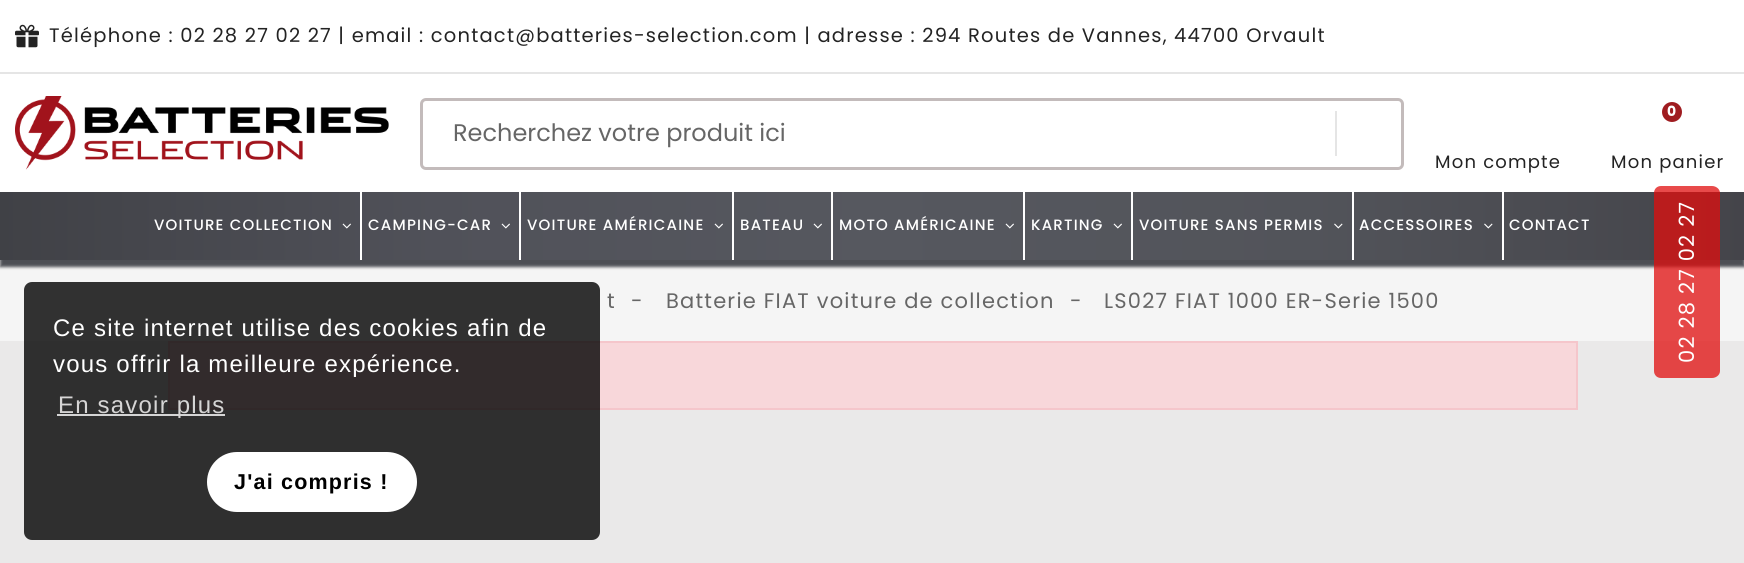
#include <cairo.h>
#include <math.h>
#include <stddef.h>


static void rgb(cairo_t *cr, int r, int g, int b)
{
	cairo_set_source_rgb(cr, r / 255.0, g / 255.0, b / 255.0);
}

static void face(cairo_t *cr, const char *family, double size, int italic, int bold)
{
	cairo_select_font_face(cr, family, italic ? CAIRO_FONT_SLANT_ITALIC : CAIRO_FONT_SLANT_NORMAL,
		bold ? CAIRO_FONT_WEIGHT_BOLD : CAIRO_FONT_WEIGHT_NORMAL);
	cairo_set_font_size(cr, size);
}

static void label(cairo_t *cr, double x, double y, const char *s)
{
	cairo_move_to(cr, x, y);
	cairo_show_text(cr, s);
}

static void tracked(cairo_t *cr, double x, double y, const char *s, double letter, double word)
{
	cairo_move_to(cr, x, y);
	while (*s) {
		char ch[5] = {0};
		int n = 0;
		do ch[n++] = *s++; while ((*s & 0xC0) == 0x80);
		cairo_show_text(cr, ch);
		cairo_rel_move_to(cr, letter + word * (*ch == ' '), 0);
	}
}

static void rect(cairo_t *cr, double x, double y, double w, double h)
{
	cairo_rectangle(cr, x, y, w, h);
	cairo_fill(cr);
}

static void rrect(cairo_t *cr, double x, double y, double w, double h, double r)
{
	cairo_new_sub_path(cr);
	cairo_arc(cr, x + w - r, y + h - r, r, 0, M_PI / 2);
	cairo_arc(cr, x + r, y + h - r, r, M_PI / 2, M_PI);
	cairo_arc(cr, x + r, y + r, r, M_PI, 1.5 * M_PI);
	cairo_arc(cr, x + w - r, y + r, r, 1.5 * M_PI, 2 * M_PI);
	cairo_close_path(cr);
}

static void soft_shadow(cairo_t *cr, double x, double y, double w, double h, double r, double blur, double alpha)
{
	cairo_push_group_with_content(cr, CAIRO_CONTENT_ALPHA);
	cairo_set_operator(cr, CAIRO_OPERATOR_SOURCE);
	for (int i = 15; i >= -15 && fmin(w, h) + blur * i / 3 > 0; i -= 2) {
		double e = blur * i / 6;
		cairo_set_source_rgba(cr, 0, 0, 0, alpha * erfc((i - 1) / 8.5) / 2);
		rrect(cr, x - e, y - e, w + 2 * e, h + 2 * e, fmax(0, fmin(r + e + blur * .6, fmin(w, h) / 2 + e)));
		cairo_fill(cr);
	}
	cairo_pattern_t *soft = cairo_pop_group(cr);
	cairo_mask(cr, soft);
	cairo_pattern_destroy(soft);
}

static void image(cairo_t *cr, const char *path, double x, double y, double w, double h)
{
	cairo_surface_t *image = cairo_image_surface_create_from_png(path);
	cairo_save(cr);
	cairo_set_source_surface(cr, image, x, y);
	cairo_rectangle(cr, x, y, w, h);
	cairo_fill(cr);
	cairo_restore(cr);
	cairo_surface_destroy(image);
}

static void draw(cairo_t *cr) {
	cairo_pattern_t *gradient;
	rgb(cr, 234, 233, 233);
	cairo_paint(cr);
	rgb(cr, 255, 255, 255);
	rect(cr, 0, 0, 1744, 192);
	rgb(cr, 229, 229, 229);
	rect(cr, 0, 72, 1744, 2);
	image(cr, "image0.png", 15, 24, 24, 24);
	face(cr, "Poppins", 19.5, 0, 0);
	rgb(cr, 35, 35, 35);
	tracked(cr, 49, 42, "Téléphone : 02 28 27 02 27 | email : contact@batteries-selection.com | adresse : 294 Routes de Vannes, 44700 Orvault", 1.2, 0);
	image(cr, "image1.png", 15, 96, 374, 74);
	rrect(cr, 421.5, 99.5, 981, 69, 4.5);
	rgb(cr, 195, 187, 187);
	cairo_set_line_width(cr, 3);
	cairo_stroke(cr);
	face(cr, "Poppins", 24, 0, 0);
	rgb(cr, 102, 102, 102);
	label(cr, 453, 141, "Recherchez votre produit ici");
	rgb(cr, 229, 229, 229);
	rect(cr, 1335, 111, 2, 45);
	face(cr, "Poppins", 18, 0, 0);
	rgb(cr, 35, 35, 35);
	tracked(cr, 1435, 168, "Mon compte", 1.2, 0);
	rgb(cr, 159, 28, 32);
	cairo_new_path(cr);
	cairo_arc(cr, 1672, 112, 10, 0, 2 * M_PI);
	cairo_fill(cr);
	face(cr, "Poppins", 14, 0, 1);
	rgb(cr, 255, 255, 255);
	tracked(cr, 1667, 116, "0", 1.2, 0);
	face(cr, "Poppins", 18, 0, 0);
	rgb(cr, 35, 35, 35);
	tracked(cr, 1611, 168, "Mon panier", 1.2, 0);
	rgb(cr, 245, 245, 245);
	rect(cr, 0, 260, 1744, 81);
	rgb(cr, 77, 79, 85);
	soft_shadow(cr, 0, 200, 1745, 67, 0, 1.5, 1);
	gradient = cairo_pattern_create_linear(0, 226, 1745, 226);
	cairo_pattern_add_color_stop_rgba(gradient, 0, 0.251, 0.255, 0.275, 1);
	cairo_pattern_add_color_stop_rgba(gradient, 0.25, 0.314, 0.318, 0.349, 1);
	cairo_pattern_add_color_stop_rgba(gradient, 0.5, 0.337, 0.345, 0.373, 1);
	cairo_pattern_add_color_stop_rgba(gradient, 0.75, 0.322, 0.329, 0.353, 1);
	cairo_pattern_add_color_stop_rgba(gradient, 1, 0.267, 0.267, 0.29, 1);
	cairo_set_source(cr, gradient);
	cairo_pattern_destroy(gradient);
	rect(cr, 0, 192, 1744, 68);
	face(cr, "Poppins Medium", 15, 0, 0);
	rgb(cr, 255, 255, 255);
	tracked(cr, 154, 230, "VOITURE COLLECTION", 1.2, 0);
	image(cr, "image2.png", 342, 223, 9, 6);
	rect(cr, 360, 192, 2, 68);
	tracked(cr, 368, 230, "CAMPING-CAR", 1.2, 0);
	image(cr, "image3.png", 501, 223, 9, 6);
	rect(cr, 519, 192, 2, 68);
	tracked(cr, 527, 230, "VOITURE AMÉRICAINE", 1.2, 0);
	image(cr, "image4.png", 714, 223, 9, 6);
	rect(cr, 732, 192, 2, 68);
	tracked(cr, 740, 230, "BATEAU", 1.2, 0);
	image(cr, "image5.png", 813, 223, 9, 6);
	rect(cr, 831, 192, 2, 68);
	tracked(cr, 839, 230, "MOTO AMÉRICAINE", 1.2, 0);
	image(cr, "image6.png", 1005, 223, 9, 6);
	rect(cr, 1023, 192, 2, 68);
	tracked(cr, 1031, 230, "KARTING", 1.2, 0);
	image(cr, "image7.png", 1113, 223, 9, 6);
	rect(cr, 1131, 192, 2, 68);
	tracked(cr, 1139, 230, "VOITURE SANS PERMIS", 1.2, 0);
	image(cr, "image8.png", 1334, 223, 9, 6);
	rect(cr, 1352, 192, 2, 68);
	tracked(cr, 1359, 230, "ACCESSOIRES", 1.2, 0);
	image(cr, "image9.png", 1484, 223, 9, 6);
	rect(cr, 1502, 192, 2, 68);
	tracked(cr, 1509, 230, "CONTACT", 1.2, 0);
	face(cr, "Poppins", 21, 0, 0);
	rgb(cr, 102, 102, 102);
	tracked(cr, 607, 308, "t", 1.2, 0);
	tracked(cr, 631, 308, "-", 1.2, 0);
	tracked(cr, 666, 308, "Batterie FIAT voiture de collection", 1.2, 0);
	tracked(cr, 1070, 308, "-", 1.2, 0);
	tracked(cr, 1104, 308, "LS027 FIAT 1000 ER-Serie 1500", 1.2, 0);
	rgb(cr, 248, 215, 218);
	cairo_rectangle(cr, 169, 342, 1408, 67);
	cairo_fill_preserve(cr);
	rgb(cr, 245, 198, 203);
	cairo_set_line_width(cr, 2);
	cairo_stroke(cr);
	cairo_set_source_rgba(cr, 0.878, 0.055, 0.055, 0.75);
	cairo_new_path(cr);
	cairo_move_to(cr, 1654, 371);
	cairo_line_to(cr, 1654, 193);
	cairo_curve_to(cr, 1654, 189, 1657, 186, 1661, 186);
	cairo_line_to(cr, 1712, 186);
	cairo_curve_to(cr, 1716, 186, 1720, 189, 1720, 193);
	cairo_line_to(cr, 1720, 371);
	cairo_curve_to(cr, 1720, 375, 1716, 378, 1712, 378);
	cairo_line_to(cr, 1661, 378);
	cairo_curve_to(cr, 1657, 378, 1654, 375, 1654, 371);
	cairo_close_path(cr);
	cairo_fill(cr);
	rgb(cr, 255, 255, 255);
	cairo_save(cr);
	cairo_translate(cr, 1694, 363);
	cairo_rotate(cr, -90 * M_PI / 180);
	tracked(cr, 0, 0, "02 28 27 02 27", 1.2, 0);
	cairo_restore(cr);
	cairo_set_source_rgba(cr, 0, 0, 0, 0.8);
	rrect(cr, 24, 282, 576, 258, 8);
	cairo_fill(cr);
	face(cr, "Liberation Sans", 24, 0, 0);
	rgb(cr, 255, 255, 255);
	tracked(cr, 53, 336, "Ce site internet utilise des cookies afin de", 1.2, 0);
	tracked(cr, 53, 372, "vous offrir la meilleure expérience.", 1.2, 0);
	rgb(cr, 213, 213, 213);
	rect(cr, 57, 414, 168, 2);
	rgb(cr, 214, 213, 213);
	tracked(cr, 58, 413, "En savoir plus", 1.2, 0);
	rgb(cr, 255, 255, 255);
	rrect(cr, 207, 452, 210, 60, 30);
	cairo_fill(cr);
	face(cr, "Liberation Sans", 21.5, 0, 1);
	rgb(cr, 0, 0, 0);
	tracked(cr, 234, 489, "J'ai compris !", 1.2, 0);
}

int main(void) {
	cairo_surface_t *surface = cairo_image_surface_create(CAIRO_FORMAT_RGB24, 1744, 563);
	cairo_t *cr = cairo_create(surface);
	cairo_font_options_t *options = cairo_font_options_create();
	cairo_font_options_set_hint_metrics(options, CAIRO_HINT_METRICS_OFF);
	cairo_font_options_set_hint_style(options, CAIRO_HINT_STYLE_NONE);
	cairo_set_font_options(cr, options);
	cairo_set_miter_limit(cr, 4);
	draw(cr);
	cairo_surface_write_to_png(surface, "render.png");
	cairo_font_options_destroy(options);
	cairo_destroy(cr);
	cairo_surface_destroy(surface);
	return 0;
}
